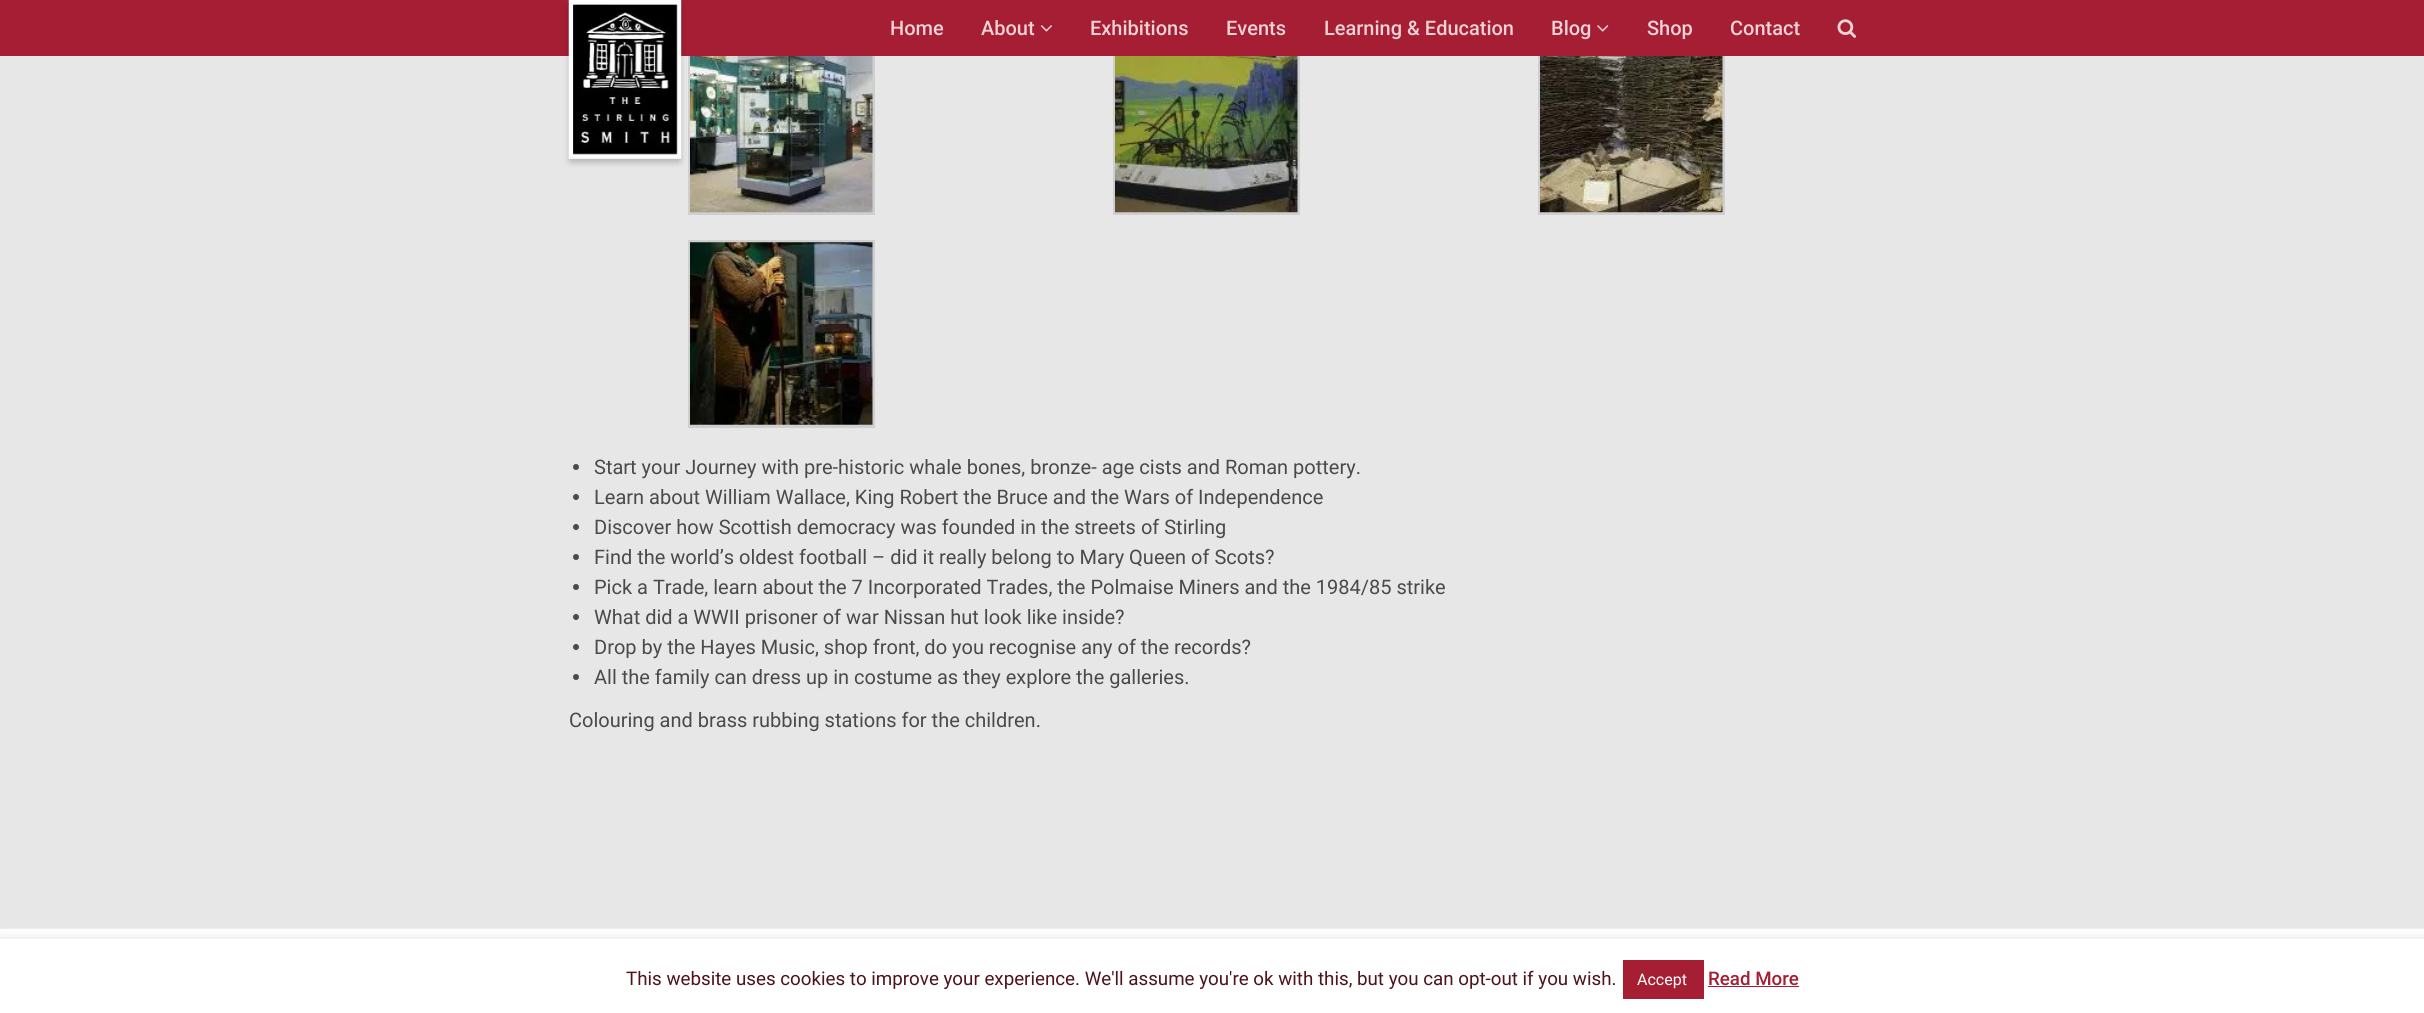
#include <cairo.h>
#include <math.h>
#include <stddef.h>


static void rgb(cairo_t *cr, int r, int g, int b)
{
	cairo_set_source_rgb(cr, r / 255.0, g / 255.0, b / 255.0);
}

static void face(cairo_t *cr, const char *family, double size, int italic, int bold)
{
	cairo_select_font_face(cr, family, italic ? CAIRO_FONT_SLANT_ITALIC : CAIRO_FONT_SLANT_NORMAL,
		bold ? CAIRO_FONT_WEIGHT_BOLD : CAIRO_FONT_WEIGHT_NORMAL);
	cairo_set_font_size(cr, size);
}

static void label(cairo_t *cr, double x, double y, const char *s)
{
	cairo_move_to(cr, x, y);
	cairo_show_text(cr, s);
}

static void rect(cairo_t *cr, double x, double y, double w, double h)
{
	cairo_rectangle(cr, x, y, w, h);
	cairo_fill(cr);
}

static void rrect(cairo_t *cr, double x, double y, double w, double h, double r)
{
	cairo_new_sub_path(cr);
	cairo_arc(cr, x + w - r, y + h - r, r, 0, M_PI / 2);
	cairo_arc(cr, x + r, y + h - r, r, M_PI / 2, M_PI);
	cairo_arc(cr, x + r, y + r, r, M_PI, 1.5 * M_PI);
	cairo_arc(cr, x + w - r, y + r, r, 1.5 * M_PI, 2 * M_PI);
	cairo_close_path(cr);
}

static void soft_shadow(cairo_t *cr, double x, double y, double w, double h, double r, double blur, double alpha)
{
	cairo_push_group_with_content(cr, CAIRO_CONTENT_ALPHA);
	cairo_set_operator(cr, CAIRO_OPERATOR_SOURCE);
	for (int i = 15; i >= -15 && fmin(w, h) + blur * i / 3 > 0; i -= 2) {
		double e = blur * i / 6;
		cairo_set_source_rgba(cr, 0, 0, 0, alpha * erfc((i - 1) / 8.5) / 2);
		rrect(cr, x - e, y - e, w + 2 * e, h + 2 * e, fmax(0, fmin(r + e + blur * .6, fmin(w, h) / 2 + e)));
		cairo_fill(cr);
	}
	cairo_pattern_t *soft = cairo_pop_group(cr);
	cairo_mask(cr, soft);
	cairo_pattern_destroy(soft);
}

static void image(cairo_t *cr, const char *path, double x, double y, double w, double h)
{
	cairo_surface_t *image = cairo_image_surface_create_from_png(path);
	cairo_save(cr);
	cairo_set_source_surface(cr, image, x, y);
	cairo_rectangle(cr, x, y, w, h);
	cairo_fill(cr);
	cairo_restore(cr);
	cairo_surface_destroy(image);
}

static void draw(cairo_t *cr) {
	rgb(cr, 231, 231, 231);
	cairo_paint(cr);
	cairo_rectangle(cr, 689.5, 29.5, 184, 184);
	rgb(cr, 207, 207, 207);
	cairo_set_line_width(cr, 3);
	cairo_stroke(cr);
	cairo_rectangle(cr, 1114.5, 29.5, 184, 184);
	cairo_stroke(cr);
	cairo_rectangle(cr, 1539.5, 29.5, 184, 184);
	cairo_stroke(cr);
	rgb(cr, 165, 30, 51);
	rect(cr, 0, 0, 2424, 56);
	image(cr, "image4.png", 690, 56, 183, 157);
	rgb(cr, 0, 0, 0);
	soft_shadow(cr, 569, 4, 112, 159, 2.5, 3, 0.2);
	image(cr, "image0.png", 568, 0, 114, 159);
	face(cr, "Roboto Medium", 20, 0, 0);
	rgb(cr, 237, 210, 214);
	label(cr, 890, 35, "Home");
	label(cr, 981, 35, "About");
	image(cr, "image1.png", 1040, 25, 12, 7);
	label(cr, 1090, 35, "Exhibitions");
	label(cr, 1226, 35, "Events");
	label(cr, 1324, 35, "Learning & Education");
	label(cr, 1551, 35, "Blog");
	image(cr, "image2.png", 1597, 25, 12, 7);
	label(cr, 1647, 35, "Shop");
	label(cr, 1730, 35, "Contact");
	image(cr, "image3.png", 1837, 19, 20, 19);
	image(cr, "image5.png", 1115, 56, 183, 157);
	image(cr, "image6.png", 1540, 56, 183, 157);
	cairo_rectangle(cr, 689.5, 241.5, 184, 185);
	rgb(cr, 207, 207, 207);
	cairo_stroke(cr);
	image(cr, "image7.png", 690, 242, 183, 183);
	rgb(cr, 74, 74, 74);
	cairo_arc(cr, 576, 467, 3, 0, 2 * M_PI);
	cairo_fill(cr);
	face(cr, "Roboto", 20, 0, 0);
	label(cr, 594, 474, "Start your Journey with pre-historic whale bones, bronze- age cists and Roman pottery.");
	cairo_new_path(cr);
	cairo_arc(cr, 576, 497, 3, 0, 2 * M_PI);
	cairo_fill(cr);
	label(cr, 594, 504, "Learn about William Wallace, King Robert the Bruce and the Wars of Independence");
	cairo_new_path(cr);
	cairo_arc(cr, 576, 527, 3, 0, 2 * M_PI);
	cairo_fill(cr);
	label(cr, 594, 534, "Discover how Scottish democracy was founded in the streets of Stirling");
	cairo_new_path(cr);
	cairo_arc(cr, 576, 557, 3, 0, 2 * M_PI);
	cairo_fill(cr);
	label(cr, 594, 564, "Find the world’s oldest football – did it really belong to Mary Queen of Scots?");
	cairo_new_path(cr);
	cairo_arc(cr, 576, 587, 3, 0, 2 * M_PI);
	cairo_fill(cr);
	label(cr, 594, 594, "Pick a Trade, learn about the 7 Incorporated Trades, the Polmaise Miners and the 1984/85 strike");
	cairo_new_path(cr);
	cairo_arc(cr, 576, 617, 3, 0, 2 * M_PI);
	cairo_fill(cr);
	label(cr, 594, 624, "What did a WWII prisoner of war Nissan hut look like inside?");
	cairo_new_path(cr);
	cairo_arc(cr, 576, 647, 3, 0, 2 * M_PI);
	cairo_fill(cr);
	label(cr, 594, 654, "Drop by the Hayes Music, shop front, do you recognise any of the records?");
	cairo_new_path(cr);
	cairo_arc(cr, 576, 677, 3, 0, 2 * M_PI);
	cairo_fill(cr);
	label(cr, 594, 684, "All the family can dress up in costume as they explore the galleries.");
	label(cr, 569, 727, "Colouring and brass rubbing stations for the children.");
	rgb(cr, 255, 255, 255);
	rect(cr, 0, 929, 2424, 10);
	rgb(cr, 238, 238, 238);
	rect(cr, 0, 928, 2424, 1);
	rgb(cr, 172, 171, 171);
	soft_shadow(cr, 0, 938, 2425, 75, 0, 6, 0.3);
	rgb(cr, 255, 255, 255);
	rect(cr, 0, 939, 2424, 74);
	face(cr, "Roboto", 18.75, 0, 0);
	rgb(cr, 79, 19, 28);
	label(cr, 626, 985, "This website uses cookies to improve your experience. We'll assume you're ok with this, but you can opt-out if you wish.");
	rgb(cr, 165, 30, 51);
	rect(cr, 1623, 960, 81, 39);
	face(cr, "Roboto", 16, 0, 0);
	rgb(cr, 255, 255, 255);
	label(cr, 1637, 985, "Accept");
	face(cr, "Roboto Medium", 18.75, 0, 0);
	rgb(cr, 165, 30, 51);
	label(cr, 1708, 985, "Read More");
	rect(cr, 1708, 986, 91, 1);
}

int main(void) {
	cairo_surface_t *surface = cairo_image_surface_create(CAIRO_FORMAT_RGB24, 2424, 1013);
	cairo_t *cr = cairo_create(surface);
	cairo_font_options_t *options = cairo_font_options_create();
	cairo_font_options_set_hint_metrics(options, CAIRO_HINT_METRICS_OFF);
	cairo_font_options_set_hint_style(options, CAIRO_HINT_STYLE_NONE);
	cairo_set_font_options(cr, options);
	cairo_set_miter_limit(cr, 4);
	draw(cr);
	cairo_surface_write_to_png(surface, "render.png");
	cairo_font_options_destroy(options);
	cairo_destroy(cr);
	cairo_surface_destroy(surface);
	return 0;
}
